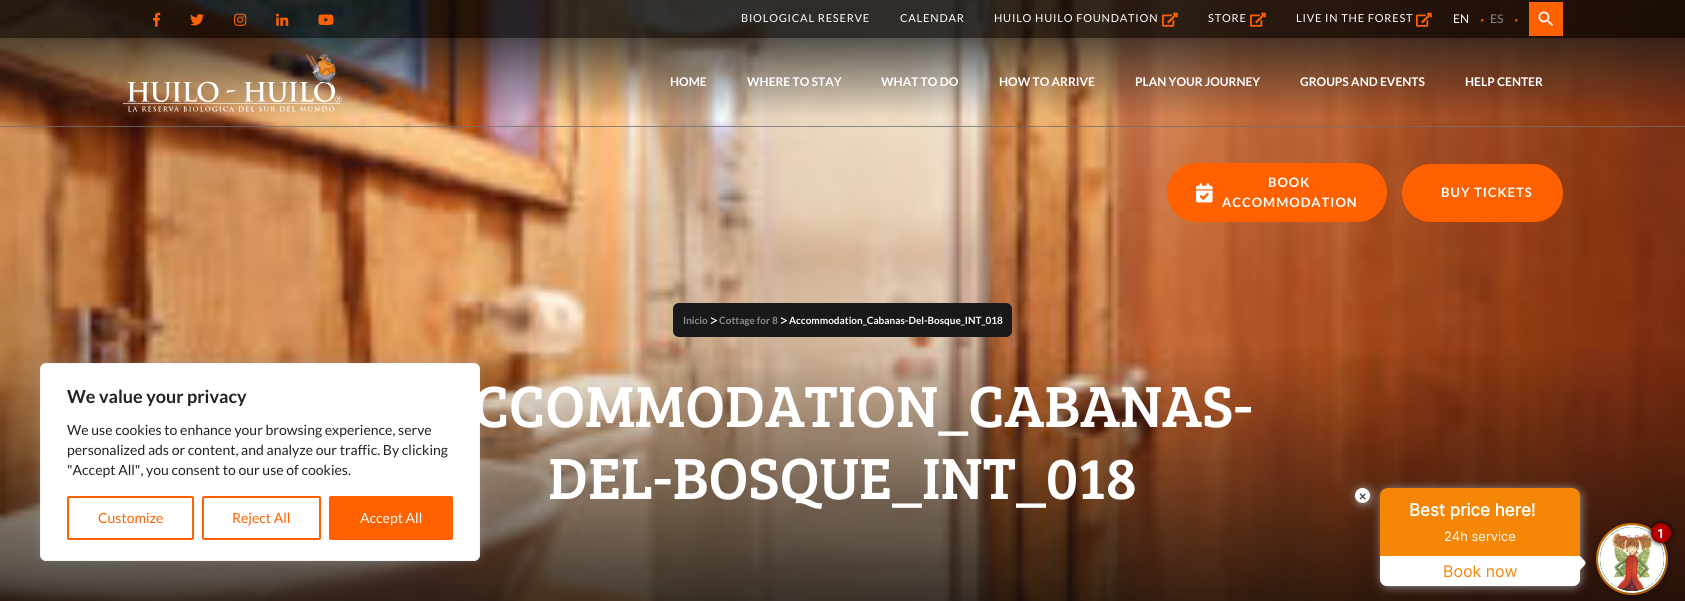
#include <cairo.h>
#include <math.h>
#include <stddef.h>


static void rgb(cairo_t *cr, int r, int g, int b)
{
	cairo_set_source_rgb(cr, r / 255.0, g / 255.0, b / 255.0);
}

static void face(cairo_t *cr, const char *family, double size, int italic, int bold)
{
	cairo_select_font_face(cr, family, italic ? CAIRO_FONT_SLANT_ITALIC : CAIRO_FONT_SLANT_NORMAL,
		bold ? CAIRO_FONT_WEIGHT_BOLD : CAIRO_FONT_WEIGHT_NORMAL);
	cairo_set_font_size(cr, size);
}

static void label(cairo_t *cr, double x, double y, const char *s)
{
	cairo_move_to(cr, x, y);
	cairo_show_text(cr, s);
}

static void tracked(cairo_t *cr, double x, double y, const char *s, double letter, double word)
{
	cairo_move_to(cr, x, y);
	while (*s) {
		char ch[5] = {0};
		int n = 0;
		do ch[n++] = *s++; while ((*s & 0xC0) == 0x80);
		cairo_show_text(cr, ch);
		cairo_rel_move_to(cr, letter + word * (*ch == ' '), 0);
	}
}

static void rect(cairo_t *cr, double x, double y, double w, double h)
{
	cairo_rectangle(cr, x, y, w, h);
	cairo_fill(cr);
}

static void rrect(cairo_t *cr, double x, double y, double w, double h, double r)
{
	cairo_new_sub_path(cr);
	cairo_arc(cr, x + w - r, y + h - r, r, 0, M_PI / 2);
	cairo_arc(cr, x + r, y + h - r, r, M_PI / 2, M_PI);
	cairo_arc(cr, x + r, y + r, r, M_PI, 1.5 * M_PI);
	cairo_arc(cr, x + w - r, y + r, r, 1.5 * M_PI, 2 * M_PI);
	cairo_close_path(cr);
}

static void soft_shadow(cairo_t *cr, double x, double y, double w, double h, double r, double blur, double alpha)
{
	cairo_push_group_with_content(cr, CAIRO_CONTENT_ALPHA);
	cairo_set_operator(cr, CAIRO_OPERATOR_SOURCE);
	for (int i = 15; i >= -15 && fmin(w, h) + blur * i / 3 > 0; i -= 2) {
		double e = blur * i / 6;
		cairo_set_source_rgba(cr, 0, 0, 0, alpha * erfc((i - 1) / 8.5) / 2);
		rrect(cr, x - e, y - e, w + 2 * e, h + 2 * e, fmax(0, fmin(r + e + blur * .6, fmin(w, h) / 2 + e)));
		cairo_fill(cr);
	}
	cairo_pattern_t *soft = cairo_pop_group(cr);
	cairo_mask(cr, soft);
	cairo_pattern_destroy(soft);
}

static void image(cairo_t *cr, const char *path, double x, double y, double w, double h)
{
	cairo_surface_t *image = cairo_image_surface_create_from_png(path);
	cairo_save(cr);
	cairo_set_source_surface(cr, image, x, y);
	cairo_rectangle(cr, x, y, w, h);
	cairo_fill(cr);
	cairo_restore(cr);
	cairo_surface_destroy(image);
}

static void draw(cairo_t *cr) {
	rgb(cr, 255, 255, 255);
	cairo_paint(cr);
	image(cr, "image11.png", 0, 0, 1685, 601);
	cairo_set_source_rgba(cr, 0, 0, 0, 0.8);
	rect(cr, 0, 0, 1685, 38);
	image(cr, "image0.png", 153, 12, 8, 15);
	image(cr, "image1.png", 190, 14, 14, 12);
	image(cr, "image2.png", 234, 13, 13, 13);
	image(cr, "image3.png", 276, 13, 13, 13);
	image(cr, "image4.png", 318, 14, 16, 11);
	face(cr, "Lato", 11, 0, 0);
	rgb(cr, 255, 255, 255);
	tracked(cr, 741, 22, "BIOLOGICAL RESERVE", 0.8, 0);
	tracked(cr, 900, 22, "CALENDAR", 0.8, 0);
	tracked(cr, 994, 22, "HUILO HUILO FOUNDATION", 0.8, 0);
	image(cr, "image5.png", 1162, 12, 16, 15);
	tracked(cr, 1208, 22, "STORE", 0.8, 0);
	image(cr, "image6.png", 1250, 12, 16, 15);
	tracked(cr, 1296, 22, "LIVE IN THE FOREST", 0.8, 0);
	image(cr, "image7.png", 1416, 12, 16, 15);
	face(cr, "Lato", 12, 0, 0);
	label(cr, 1453, 23, "EN");
	face(cr, "Lato", 16, 0, 0);
	rgb(cr, 255, 97, 0);
	label(cr, 1480, 25, "·");
	face(cr, "Lato", 12, 0, 0);
	rgb(cr, 144, 136, 132);
	label(cr, 1490, 23, "ES");
	face(cr, "Lato", 16, 0, 0);
	rgb(cr, 255, 97, 0);
	label(cr, 1514, 25, "·");
	rect(cr, 1529, 2, 34, 34);
	image(cr, "image8.png", 1538, 11, 15, 15);
	cairo_set_source_rgba(cr, 1, 1, 1, 0.3);
	rect(cr, 0, 126, 1685, 1);
	image(cr, "image9.png", 123, 52, 219, 60);
	face(cr, "Lato", 12, 0, 1);
	rgb(cr, 255, 255, 255);
	label(cr, 670, 86, "HOME");
	label(cr, 747, 86, "WHERE TO STAY");
	label(cr, 881, 86, "WHAT TO DO");
	label(cr, 999, 86, "HOW TO ARRIVE");
	label(cr, 1135, 86, "PLAN YOUR JOURNEY");
	label(cr, 1300, 86, "GROUPS AND EVENTS");
	label(cr, 1465, 86, "HELP CENTER");
	rgb(cr, 255, 97, 0);
	rrect(cr, 1167, 163, 220, 59, 29.5);
	cairo_fill(cr);
	image(cr, "image10.png", 1196, 183, 17, 20);
	face(cr, "Lato", 13, 0, 1);
	rgb(cr, 255, 255, 255);
	tracked(cr, 1268, 187, "BOOK", 1, 0);
	tracked(cr, 1222, 207, "ACCOMMODATION", 1, 0);
	rgb(cr, 255, 97, 0);
	rrect(cr, 1402, 164, 161, 58, 29);
	cairo_fill(cr);
	rgb(cr, 255, 255, 255);
	tracked(cr, 1441, 197, "BUY TICKETS", 1, 0);
	rgb(cr, 172, 171, 171);
	soft_shadow(cr, 40, 362, 440, 198, 6, 5, 0.3);
	rgb(cr, 255, 255, 255);
	rrect(cr, 40.5, 363.5, 439, 197, 5.5);
	cairo_fill_preserve(cr);
	rgb(cr, 244, 244, 244);
	cairo_set_line_width(cr, 1);
	cairo_stroke(cr);
	face(cr, "Lato", 18, 0, 1);
	rgb(cr, 33, 33, 33);
	label(cr, 67, 403, "We value your privacy");
	face(cr, "Lato", 14, 0, 0);
	label(cr, 67, 435, "We use cookies to enhance your browsing experience, serve");
	label(cr, 67, 455, "personalized ads or content, and analyze our traffic. By clicking");
	label(cr, 67, 475, "\"Accept All\", you consent to our use of cookies.");
	rrect(cr, 68, 497, 125, 42, 1);
	rgb(cr, 255, 97, 0);
	cairo_set_line_width(cr, 2);
	cairo_stroke(cr);
	label(cr, 98, 523, "Customize");
	rrect(cr, 203, 497, 117, 42, 1);
	cairo_stroke(cr);
	label(cr, 232, 523, "Reject All");
	rrect(cr, 330, 497, 122, 42, 1);
	cairo_fill_preserve(cr);
	cairo_stroke(cr);
	rgb(cr, 255, 255, 255);
	label(cr, 360, 523, "Accept All");
	rgb(cr, 24, 25, 26);
	rrect(cr, 673, 303, 339, 34, 6);
	cairo_fill(cr);
	face(cr, "Lato", 10, 0, 1);
	rgb(cr, 140, 140, 141);
	label(cr, 683, 324, "Inicio");
	face(cr, "Lato", 16, 0, 0);
	rgb(cr, 255, 255, 255);
	label(cr, 709, 326, ">");
	face(cr, "Lato", 10, 0, 1);
	rgb(cr, 140, 140, 141);
	label(cr, 719, 324, "Cottage for 8");
	face(cr, "Lato", 16, 0, 0);
	rgb(cr, 255, 255, 255);
	label(cr, 779, 326, ">");
	face(cr, "Lato", 10, 0, 1);
	label(cr, 789, 324, "Accommodation_Cabanas-Del-Bosque_INT_018");
	face(cr, "Bree Serif", 60, 0, 0);
	label(cr, 473, 427, "CCOMMODATION_CABANAS-");
	label(cr, 548, 499, "DEL-BOSQUE_INT_018");
	cairo_new_path(cr);
	cairo_arc(cr, 1632, 559, 35, 0, 2 * M_PI);
	rgb(cr, 245, 134, 6);
	cairo_stroke(cr);
	rgb(cr, 0, 0, 0);
	soft_shadow(cr, 1602, 529, 62, 62, 31, 5, 1);
	cairo_arc(cr, 1632, 559, 33, 0, 2 * M_PI);
	rgb(cr, 255, 255, 255);
	cairo_stroke(cr);
	rgb(cr, 170, 170, 170);
	soft_shadow(cr, 1382, 490, 198, 96, 7, 5, 1);
	rgb(cr, 245, 134, 6);
	rrect(cr, 1380, 488, 200, 98, 8);
	cairo_fill(cr);
	rgb(cr, 170, 170, 170);
	soft_shadow(cr, 1357, 490, 13, 13, 6.5, 5, 1);
	rgb(cr, 255, 255, 255);
	cairo_arc(cr, 1362.5, 495.5, 7.5, 0, 2 * M_PI);
	cairo_fill(cr);
	face(cr, "Roboto", 14, 0, 0);
	rgb(cr, 51, 51, 51);
	label(cr, 1359, 501, "×");
	face(cr, "Inter", 17, 0, 1);
	rgb(cr, 255, 255, 255);
	label(cr, 1409, 516, "Best price here!");
	face(cr, "Inter", 13, 0, 0);
	label(cr, 1444, 541, "24h service");
	cairo_new_path(cr);
	cairo_move_to(cr, 1380, 556);
	cairo_line_to(cr, 1580, 556);
	cairo_line_to(cr, 1580, 579);
	cairo_curve_to(cr, 1580, 583, 1577, 586, 1573, 586);
	cairo_line_to(cr, 1387, 586);
	cairo_curve_to(cr, 1383, 586, 1380, 583, 1380, 579);
	cairo_close_path(cr);
	cairo_fill(cr);
	cairo_new_path(cr);
	cairo_move_to(cr, 1580, 556);
	cairo_curve_to(cr, 1587.5, 563.5, 1587.5, 562.5, 1580, 570);
	cairo_line_to(cr, 1573, 563);
	cairo_close_path(cr);
	cairo_fill(cr);
	face(cr, "Inter", 16, 0, 0);
	rgb(cr, 245, 134, 6);
	label(cr, 1443, 577, "Book now");
	rgb(cr, 2, 133, 18);
	cairo_new_path(cr);
	cairo_arc(cr, 1632, 559, 32, 0, 2 * M_PI);
	cairo_fill(cr);
	image(cr, "image12.png", 1600, 527, 64, 64);
	rgb(cr, 0, 0, 0);
	soft_shadow(cr, 1651, 523, 20, 20, 10, 2.5, 1);
	rgb(cr, 182, 0, 0);
	cairo_arc(cr, 1661, 533, 9, 0, 2 * M_PI);
	cairo_fill_preserve(cr);
	rgb(cr, 163, 0, 0);
	cairo_stroke(cr);
	face(cr, "Roboto", 13, 0, 1);
	rgb(cr, 255, 255, 255);
	label(cr, 1657, 538, "1");
}

int main(void) {
	cairo_surface_t *surface = cairo_image_surface_create(CAIRO_FORMAT_RGB24, 1685, 601);
	cairo_t *cr = cairo_create(surface);
	cairo_font_options_t *options = cairo_font_options_create();
	cairo_font_options_set_hint_metrics(options, CAIRO_HINT_METRICS_OFF);
	cairo_font_options_set_hint_style(options, CAIRO_HINT_STYLE_NONE);
	cairo_set_font_options(cr, options);
	cairo_set_miter_limit(cr, 4);
	draw(cr);
	cairo_surface_write_to_png(surface, "render.png");
	cairo_font_options_destroy(options);
	cairo_destroy(cr);
	cairo_surface_destroy(surface);
	return 0;
}
